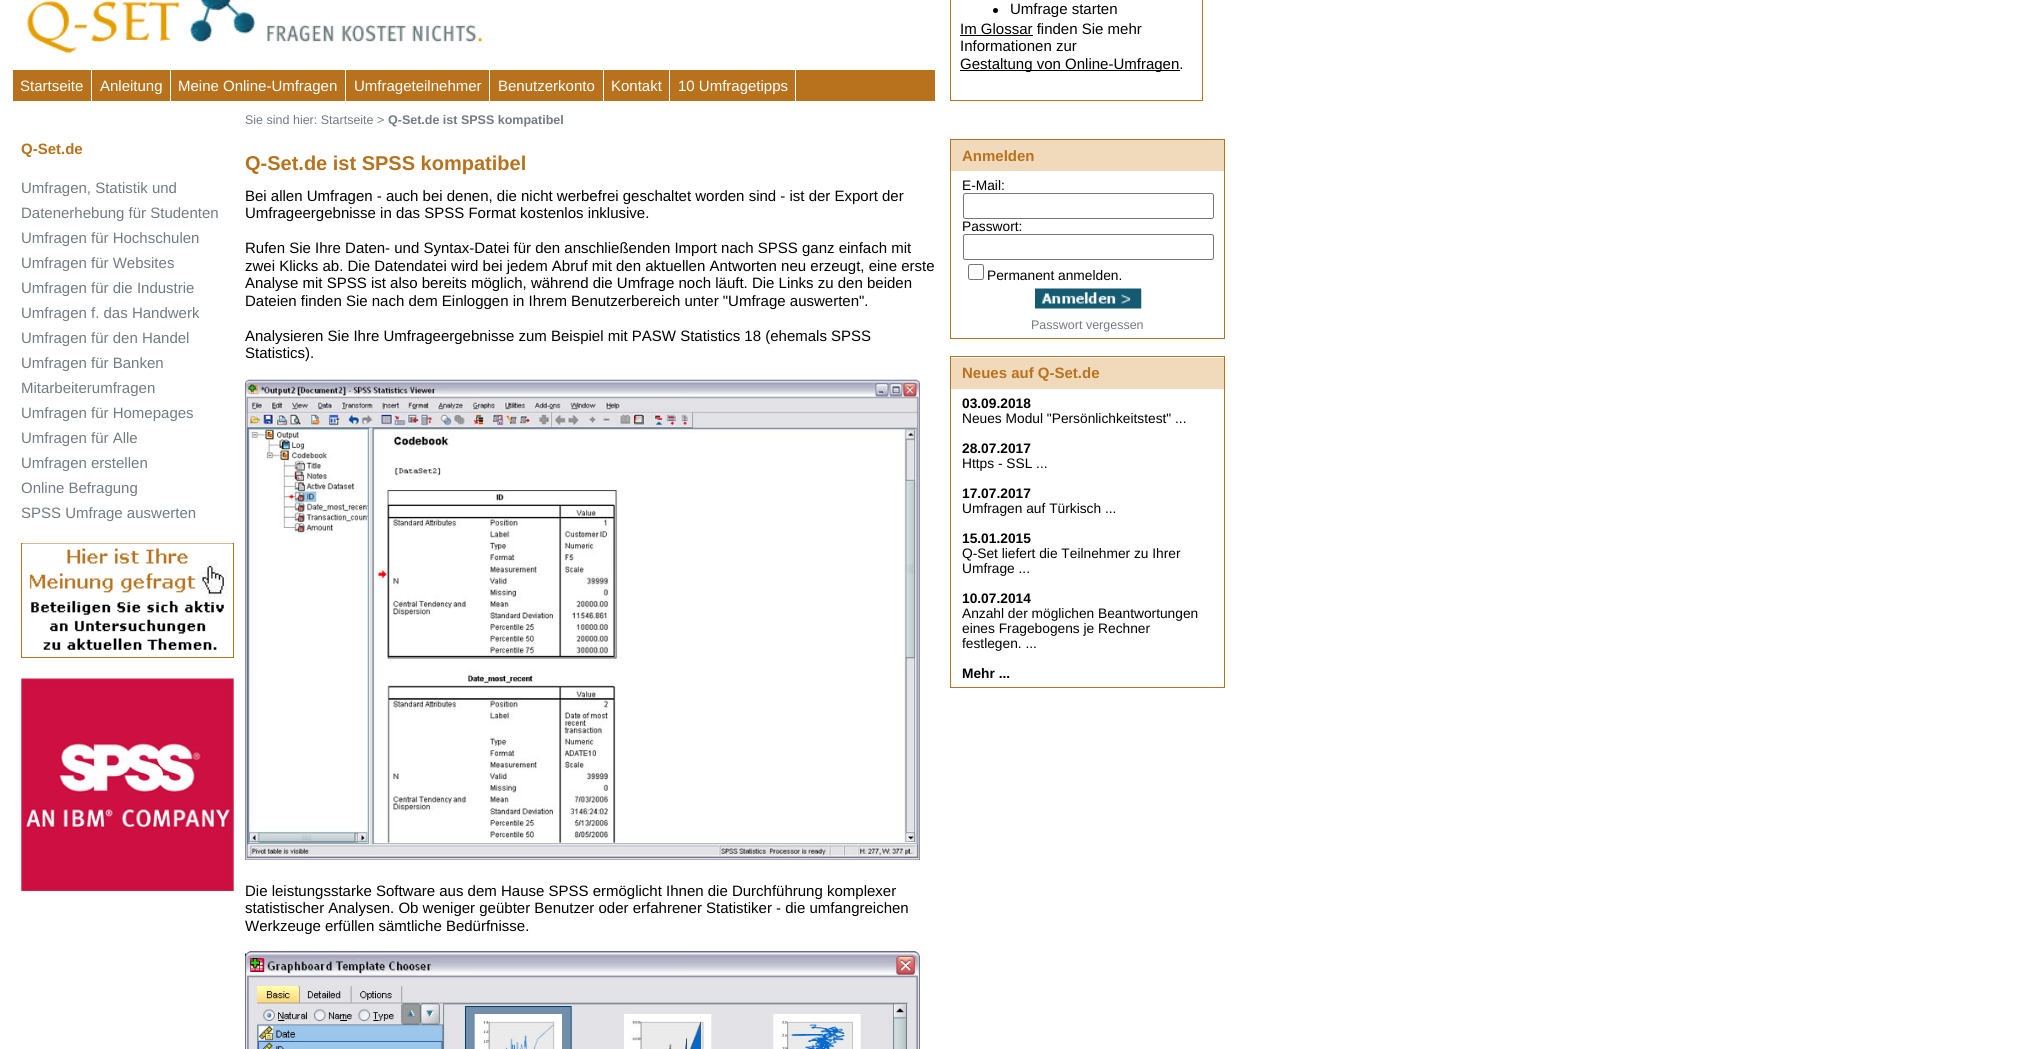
#include <cairo.h>
#include <math.h>
#include <stddef.h>


static void rgb(cairo_t *cr, int r, int g, int b)
{
	cairo_set_source_rgb(cr, r / 255.0, g / 255.0, b / 255.0);
}

static void face(cairo_t *cr, const char *family, double size, int italic, int bold)
{
	cairo_select_font_face(cr, family, italic ? CAIRO_FONT_SLANT_ITALIC : CAIRO_FONT_SLANT_NORMAL,
		bold ? CAIRO_FONT_WEIGHT_BOLD : CAIRO_FONT_WEIGHT_NORMAL);
	cairo_set_font_size(cr, size);
}

static void label(cairo_t *cr, double x, double y, const char *s)
{
	cairo_move_to(cr, x, y);
	cairo_show_text(cr, s);
}

static void rect(cairo_t *cr, double x, double y, double w, double h)
{
	cairo_rectangle(cr, x, y, w, h);
	cairo_fill(cr);
}

static void rrect(cairo_t *cr, double x, double y, double w, double h, double r)
{
	cairo_new_sub_path(cr);
	cairo_arc(cr, x + w - r, y + h - r, r, 0, M_PI / 2);
	cairo_arc(cr, x + r, y + h - r, r, M_PI / 2, M_PI);
	cairo_arc(cr, x + r, y + r, r, M_PI, 1.5 * M_PI);
	cairo_arc(cr, x + w - r, y + r, r, 1.5 * M_PI, 2 * M_PI);
	cairo_close_path(cr);
}

static void image(cairo_t *cr, const char *path, double x, double y, double w, double h)
{
	cairo_surface_t *image = cairo_image_surface_create_from_png(path);
	cairo_save(cr);
	cairo_set_source_surface(cr, image, x, y);
	cairo_rectangle(cr, x, y, w, h);
	cairo_fill(cr);
	cairo_restore(cr);
	cairo_surface_destroy(image);
}

static void draw(cairo_t *cr) {
	rgb(cr, 255, 255, 255);
	cairo_paint(cr);
	image(cr, "image0.png", 27, 0, 456, 54);
	cairo_rectangle(cr, 950.5, -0.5, 252, 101);
	rgb(cr, 184, 114, 29);
	cairo_set_line_width(cr, 1);
	cairo_stroke(cr);
	rgb(cr, 0, 0, 0);
	cairo_arc(cr, 995.5, 10.5, 2.5, 0, 2 * M_PI);
	cairo_fill(cr);
	face(cr, "Liberation Sans", 15, 0, 0);
	label(cr, 1010, 14, "Umfrage starten");
	label(cr, 960, 34, "Im Glossar finden Sie mehr");
	rect(cr, 960, 35, 73, 1);
	label(cr, 960, 51, "Informationen zur");
	rect(cr, 960, 70, 220, 1);
	label(cr, 960, 69, "Gestaltung von Online-Umfragen.");
	rgb(cr, 184, 114, 29);
	rect(cr, 13, 70, 157, 31);
	rgb(cr, 255, 255, 255);
	rect(cr, 91, 70, 1, 31);
	label(cr, 20, 91, "Startseite");
	label(cr, 100, 91, "Anleitung");
	rgb(cr, 184, 114, 29);
	rect(cr, 171, 70, 174, 31);
	rgb(cr, 255, 255, 255);
	label(cr, 178, 91, "Meine Online-Umfragen");
	rgb(cr, 184, 114, 29);
	rect(cr, 346, 70, 143, 31);
	rgb(cr, 255, 255, 255);
	label(cr, 354, 91, "Umfrageteilnehmer");
	rgb(cr, 184, 114, 29);
	rect(cr, 490, 70, 113, 31);
	rgb(cr, 255, 255, 255);
	label(cr, 498, 91, "Benutzerkonto");
	rgb(cr, 184, 114, 29);
	rect(cr, 604, 70, 65, 31);
	rgb(cr, 255, 255, 255);
	label(cr, 611, 91, "Kontakt");
	rgb(cr, 184, 114, 29);
	rect(cr, 670, 70, 125, 31);
	rgb(cr, 255, 255, 255);
	label(cr, 678, 91, "10 Umfragetipps");
	rgb(cr, 184, 114, 29);
	rect(cr, 796, 70, 139, 31);
	face(cr, "Liberation Sans", 12.5, 0, 0);
	rgb(cr, 114, 123, 130);
	label(cr, 245, 124, "Sie sind hier: Startseite >");
	face(cr, "Liberation Sans", 12.5, 0, 1);
	label(cr, 388, 124, "Q-Set.de ist SPSS kompatibel");
	face(cr, "Liberation Sans", 15, 0, 1);
	rgb(cr, 184, 114, 29);
	label(cr, 21, 154, "Q-Set.de");
	face(cr, "Liberation Sans", 15, 0, 0);
	rgb(cr, 114, 123, 130);
	label(cr, 21, 193, "Umfragen, Statistik und");
	label(cr, 21, 218, "Datenerhebung für Studenten");
	label(cr, 21, 243, "Umfragen für Hochschulen");
	label(cr, 21, 268, "Umfragen für Websites");
	label(cr, 21, 293, "Umfragen für die Industrie");
	label(cr, 21, 318, "Umfragen f. das Handwerk");
	label(cr, 21, 343, "Umfragen für den Handel");
	label(cr, 21, 368, "Umfragen für Banken");
	label(cr, 21, 393, "Mitarbeiterumfragen");
	label(cr, 21, 418, "Umfragen für Homepages");
	label(cr, 21, 443, "Umfragen für Alle");
	label(cr, 21, 468, "Umfragen erstellen");
	label(cr, 21, 493, "Online Befragung");
	label(cr, 21, 518, "SPSS Umfrage auswerten");
	cairo_rectangle(cr, 21.5, 543.5, 212, 114);
	rgb(cr, 184, 114, 29);
	cairo_stroke(cr);
	image(cr, "image1.png", 22, 543, 211, 107);
	image(cr, "image2.png", 21, 678, 213, 213);
	face(cr, "Liberation Sans", 20, 0, 1);
	label(cr, 245, 170, "Q-Set.de ist SPSS kompatibel");
	face(cr, "Liberation Sans", 15, 0, 0);
	rgb(cr, 0, 0, 0);
	label(cr, 245, 201, "Bei allen Umfragen - auch bei denen, die nicht werbefrei geschaltet worden sind - ist der Export der");
	label(cr, 245, 218, "Umfrageergebnisse in das SPSS Format kostenlos inklusive.");
	label(cr, 245, 253, "Rufen Sie Ihre Daten- und Syntax-Datei für den anschließenden Import nach SPSS ganz einfach mit");
	label(cr, 245, 271, "zwei Klicks ab. Die Datendatei wird bei jedem Abruf mit den aktuellen Antworten neu erzeugt, eine erste");
	label(cr, 245, 288, "Analyse mit SPSS ist also bereits möglich, während die Umfrage noch läuft. Die Links zu den beiden");
	label(cr, 245, 306, "Dateien finden Sie nach dem Einloggen in Ihrem Benutzerbereich unter \"Umfrage auswerten\".");
	label(cr, 245, 341, "Analysieren Sie Ihre Umfrageergebnisse zum Beispiel mit PASW Statistics 18 (ehemals SPSS");
	label(cr, 245, 358, "Statistics).");
	image(cr, "image3.png", 245, 379, 675, 481);
	label(cr, 245, 896, "Die leistungsstarke Software aus dem Hause SPSS ermöglicht Ihnen die Durchführung komplexer");
	label(cr, 245, 913, "statistischer Analysen. Ob weniger geübter Benutzer oder erfahrener Statistiker - die umfangreichen");
	label(cr, 245, 931, "Werkzeuge erfüllen sämtliche Bedürfnisse.");
	image(cr, "image4.png", 245, 951, 675, 98);
	cairo_rectangle(cr, 950.5, 139.5, 274, 199);
	rgb(cr, 184, 114, 29);
	cairo_stroke(cr);
	rgb(cr, 241, 217, 188);
	rect(cr, 951, 140, 273, 31);
	face(cr, "Liberation Sans", 15, 0, 1);
	rgb(cr, 184, 114, 29);
	label(cr, 962, 161, "Anmelden");
	face(cr, "Liberation Sans", 13.75, 0, 0);
	rgb(cr, 0, 0, 0);
	label(cr, 962, 190, "E-Mail:");
	rrect(cr, 963.5, 193.5, 250, 25, 2);
	rgb(cr, 118, 118, 118);
	cairo_stroke(cr);
	rgb(cr, 0, 0, 0);
	label(cr, 962, 231, "Passwort:");
	rrect(cr, 963.5, 234.5, 250, 25, 2);
	rgb(cr, 118, 118, 118);
	cairo_stroke(cr);
	rrect(cr, 968.5, 264.5, 15, 15, 2);
	cairo_stroke(cr);
	rgb(cr, 0, 0, 0);
	label(cr, 987, 280, "Permanent anmelden.");
	image(cr, "image5.png", 1035, 288, 107, 21);
	face(cr, "Liberation Sans", 12.5, 0, 0);
	rgb(cr, 114, 123, 130);
	label(cr, 1031, 329, "Passwort vergessen");
	cairo_rectangle(cr, 950.5, 356.5, 274, 331);
	rgb(cr, 184, 114, 29);
	cairo_stroke(cr);
	rgb(cr, 241, 217, 188);
	rect(cr, 951, 358, 273, 31);
	face(cr, "Liberation Sans", 15, 0, 1);
	rgb(cr, 184, 114, 29);
	label(cr, 962, 378, "Neues auf Q-Set.de");
	face(cr, "Liberation Sans", 13.75, 0, 1);
	rgb(cr, 0, 0, 0);
	label(cr, 962, 408, "03.09.2018");
	face(cr, "Liberation Sans", 13.75, 0, 0);
	label(cr, 962, 423, "Neues Modul \"Persönlichkeitstest\" ...");
	face(cr, "Liberation Sans", 13.75, 0, 1);
	label(cr, 962, 453, "28.07.2017");
	face(cr, "Liberation Sans", 13.75, 0, 0);
	label(cr, 962, 468, "Https - SSL ...");
	face(cr, "Liberation Sans", 13.75, 0, 1);
	label(cr, 962, 498, "17.07.2017");
	face(cr, "Liberation Sans", 13.75, 0, 0);
	label(cr, 962, 513, "Umfragen auf Türkisch ...");
	face(cr, "Liberation Sans", 13.75, 0, 1);
	label(cr, 962, 543, "15.01.2015");
	face(cr, "Liberation Sans", 13.75, 0, 0);
	label(cr, 962, 558, "Q-Set liefert die Teilnehmer zu Ihrer");
	label(cr, 962, 573, "Umfrage ...");
	face(cr, "Liberation Sans", 13.75, 0, 1);
	label(cr, 962, 603, "10.07.2014");
	face(cr, "Liberation Sans", 13.75, 0, 0);
	label(cr, 962, 618, "Anzahl der möglichen Beantwortungen");
	label(cr, 962, 633, "eines Fragebogens je Rechner");
	label(cr, 962, 648, "festlegen. ...");
	face(cr, "Liberation Sans", 13.75, 0, 1);
	label(cr, 962, 678, "Mehr ...");
}

int main(void) {
	cairo_surface_t *surface = cairo_image_surface_create(CAIRO_FORMAT_RGB24, 2030, 1049);
	cairo_t *cr = cairo_create(surface);
	cairo_font_options_t *options = cairo_font_options_create();
	cairo_font_options_set_hint_metrics(options, CAIRO_HINT_METRICS_OFF);
	cairo_font_options_set_hint_style(options, CAIRO_HINT_STYLE_NONE);
	cairo_set_font_options(cr, options);
	cairo_set_miter_limit(cr, 4);
	draw(cr);
	cairo_surface_write_to_png(surface, "render.png");
	cairo_font_options_destroy(options);
	cairo_destroy(cr);
	cairo_surface_destroy(surface);
	return 0;
}
